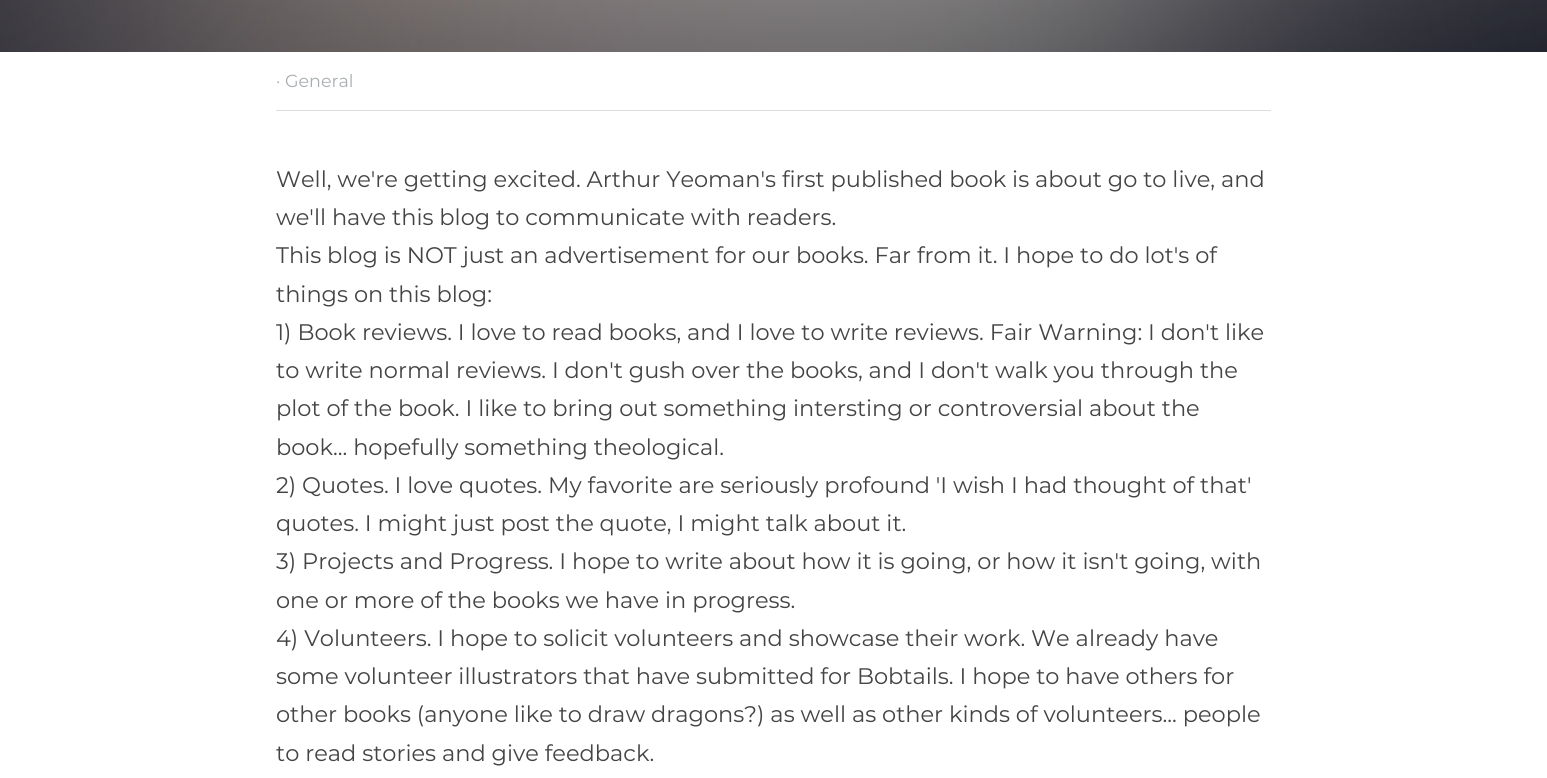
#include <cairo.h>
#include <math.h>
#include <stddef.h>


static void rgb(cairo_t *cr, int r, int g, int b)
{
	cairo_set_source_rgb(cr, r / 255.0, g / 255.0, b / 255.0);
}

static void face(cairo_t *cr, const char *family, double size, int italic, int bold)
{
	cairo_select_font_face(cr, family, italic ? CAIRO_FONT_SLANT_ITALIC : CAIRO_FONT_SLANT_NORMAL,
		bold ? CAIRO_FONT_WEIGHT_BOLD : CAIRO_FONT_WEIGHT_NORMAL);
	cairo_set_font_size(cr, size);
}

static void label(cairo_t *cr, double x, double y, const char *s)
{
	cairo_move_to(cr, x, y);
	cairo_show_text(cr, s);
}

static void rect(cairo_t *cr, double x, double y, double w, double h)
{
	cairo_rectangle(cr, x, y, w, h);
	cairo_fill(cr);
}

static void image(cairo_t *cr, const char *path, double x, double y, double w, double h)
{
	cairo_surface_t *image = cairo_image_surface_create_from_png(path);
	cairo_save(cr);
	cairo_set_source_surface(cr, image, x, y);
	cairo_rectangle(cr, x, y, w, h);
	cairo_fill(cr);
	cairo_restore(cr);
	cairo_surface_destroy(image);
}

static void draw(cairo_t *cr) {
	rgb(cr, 255, 255, 255);
	cairo_paint(cr);
	image(cr, "image0.png", 0, 0, 1547, 52);
	rgb(cr, 221, 221, 221);
	rect(cr, 276, 110, 995, 1);
	face(cr, "Montserrat", 17.5, 0, 0);
	rgb(cr, 169, 174, 178);
	label(cr, 276, 87, "· General");
	face(cr, "Montserrat", 22.5, 0, 0);
	rgb(cr, 68, 68, 68);
	label(cr, 276, 187, "Well, we're getting excited. Arthur Yeoman's first published book is about go to live, and");
	label(cr, 276, 225, "we'll have this blog to communicate with readers.");
	label(cr, 276, 263, "This blog is NOT just an advertisement for our books. Far from it. I hope to do lot's of");
	label(cr, 276, 302, "things on this blog:");
	label(cr, 276, 340, "1) Book reviews. I love to read books, and I love to write reviews. Fair Warning: I don't like");
	label(cr, 276, 378, "to write normal reviews. I don't gush over the books, and I don't walk you through the");
	label(cr, 276, 416, "plot of the book. I like to bring out something intersting or controversial about the");
	label(cr, 276, 455, "book... hopefully something theological.");
	label(cr, 276, 493, "2) Quotes. I love quotes. My favorite are seriously profound 'I wish I had thought of that'");
	label(cr, 276, 531, "quotes. I might just post the quote, I might talk about it.");
	label(cr, 276, 569, "3) Projects and Progress. I hope to write about how it is going, or how it isn't going, with");
	label(cr, 276, 608, "one or more of the books we have in progress.");
	label(cr, 276, 646, "4) Volunteers. I hope to solicit volunteers and showcase their work. We already have");
	label(cr, 276, 684, "some volunteer illustrators that have submitted for Bobtails. I hope to have others for");
	label(cr, 276, 722, "other books (anyone like to draw dragons?) as well as other kinds of volunteers... people");
	label(cr, 276, 761, "to read stories and give feedback.");
}

int main(void) {
	cairo_surface_t *surface = cairo_image_surface_create(CAIRO_FORMAT_RGB24, 1547, 778);
	cairo_t *cr = cairo_create(surface);
	cairo_font_options_t *options = cairo_font_options_create();
	cairo_font_options_set_hint_metrics(options, CAIRO_HINT_METRICS_OFF);
	cairo_font_options_set_hint_style(options, CAIRO_HINT_STYLE_NONE);
	cairo_set_font_options(cr, options);
	cairo_set_miter_limit(cr, 4);
	draw(cr);
	cairo_surface_write_to_png(surface, "render.png");
	cairo_font_options_destroy(options);
	cairo_destroy(cr);
	cairo_surface_destroy(surface);
	return 0;
}
